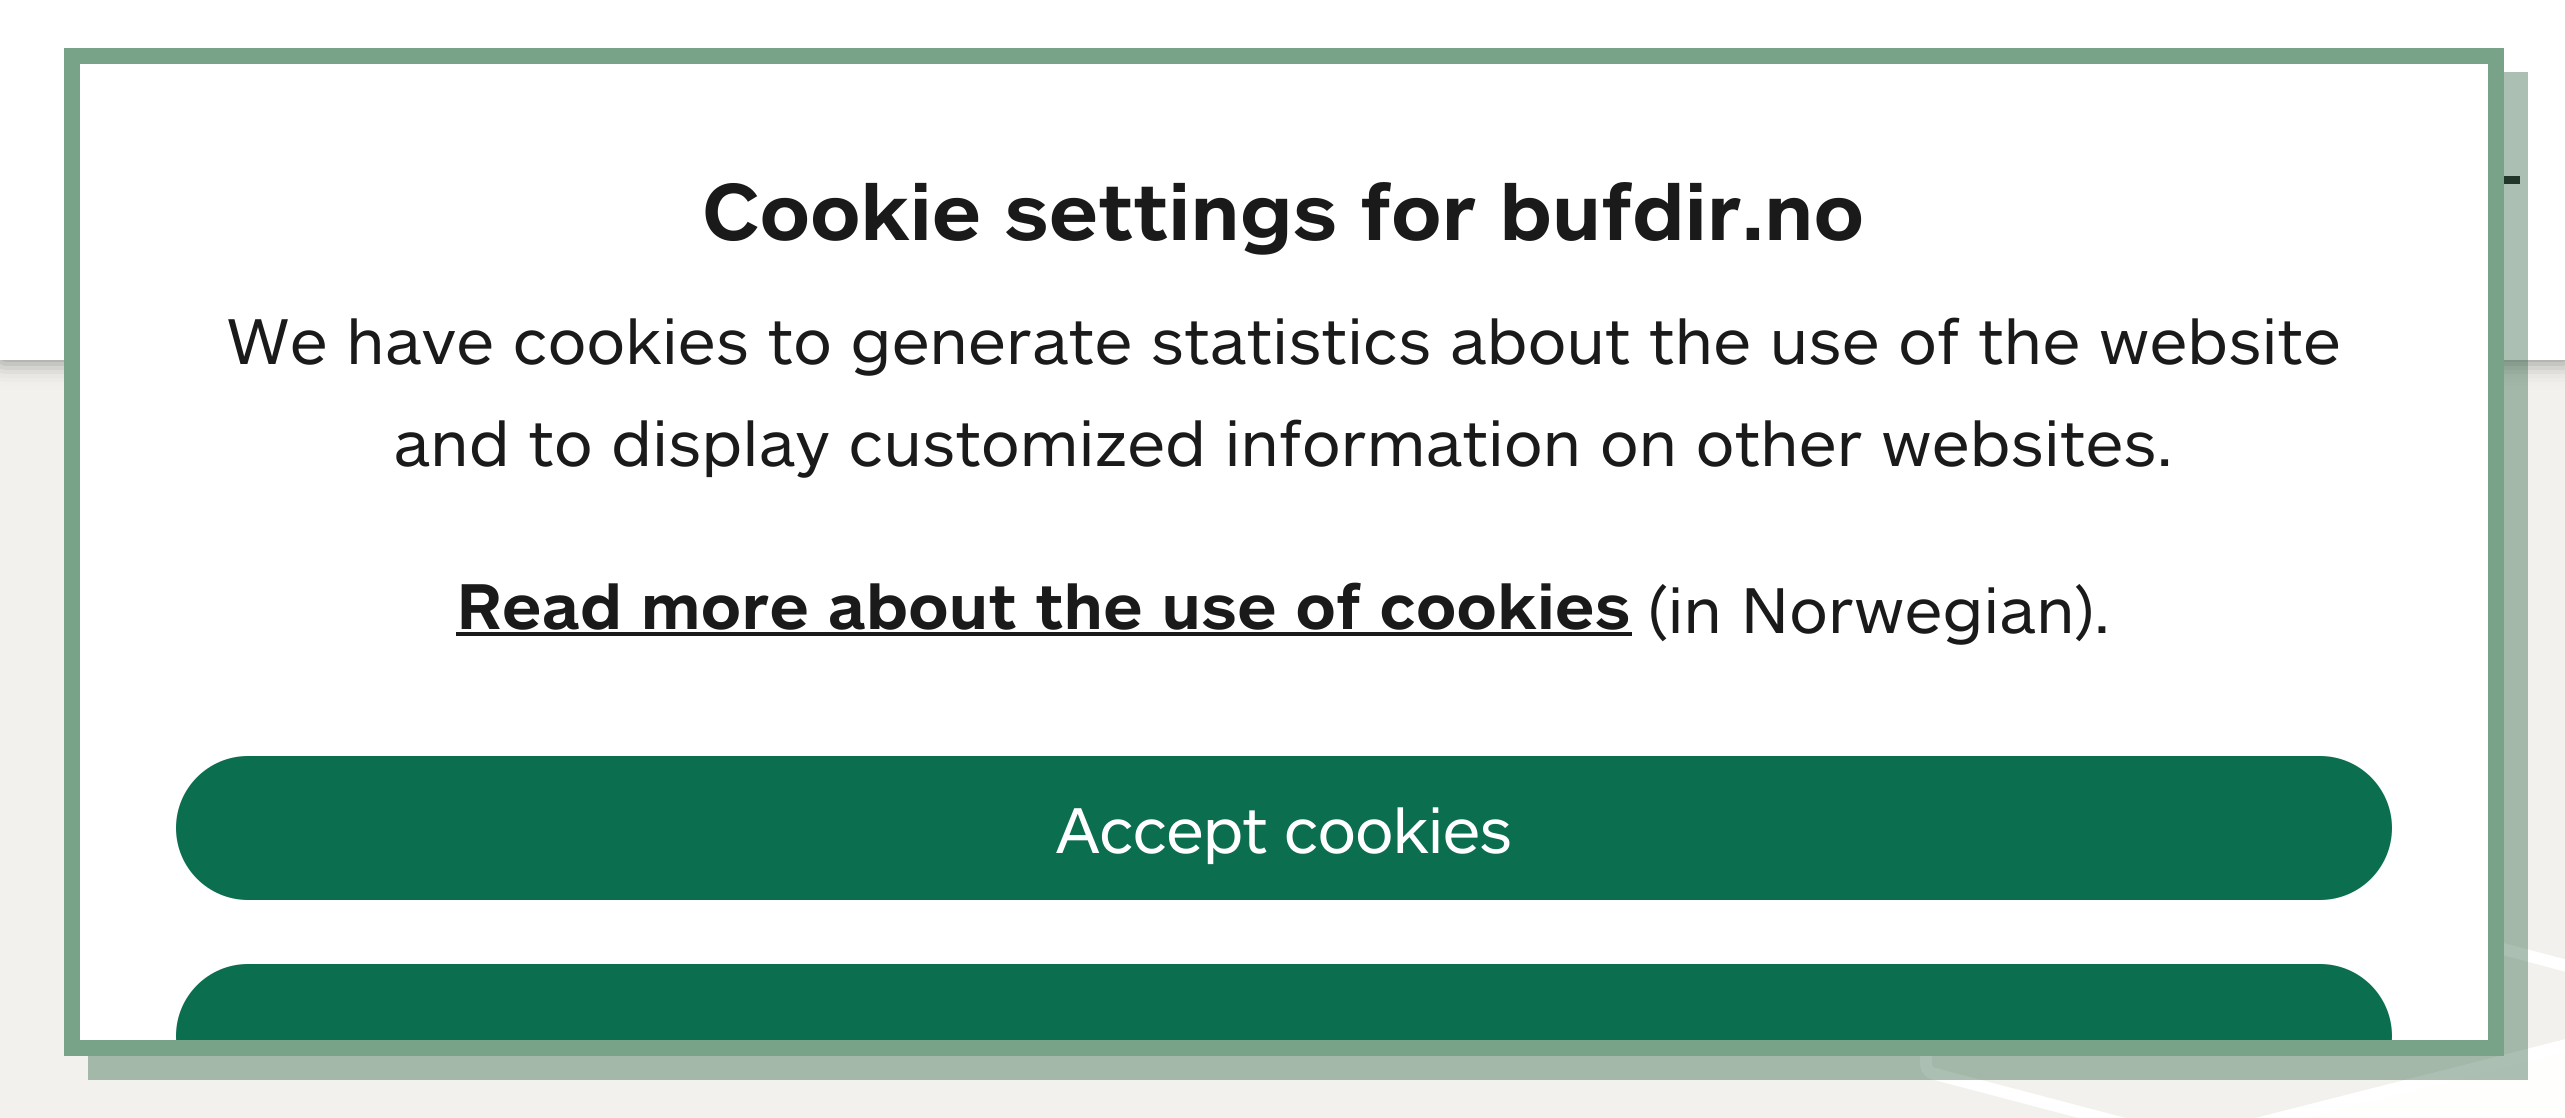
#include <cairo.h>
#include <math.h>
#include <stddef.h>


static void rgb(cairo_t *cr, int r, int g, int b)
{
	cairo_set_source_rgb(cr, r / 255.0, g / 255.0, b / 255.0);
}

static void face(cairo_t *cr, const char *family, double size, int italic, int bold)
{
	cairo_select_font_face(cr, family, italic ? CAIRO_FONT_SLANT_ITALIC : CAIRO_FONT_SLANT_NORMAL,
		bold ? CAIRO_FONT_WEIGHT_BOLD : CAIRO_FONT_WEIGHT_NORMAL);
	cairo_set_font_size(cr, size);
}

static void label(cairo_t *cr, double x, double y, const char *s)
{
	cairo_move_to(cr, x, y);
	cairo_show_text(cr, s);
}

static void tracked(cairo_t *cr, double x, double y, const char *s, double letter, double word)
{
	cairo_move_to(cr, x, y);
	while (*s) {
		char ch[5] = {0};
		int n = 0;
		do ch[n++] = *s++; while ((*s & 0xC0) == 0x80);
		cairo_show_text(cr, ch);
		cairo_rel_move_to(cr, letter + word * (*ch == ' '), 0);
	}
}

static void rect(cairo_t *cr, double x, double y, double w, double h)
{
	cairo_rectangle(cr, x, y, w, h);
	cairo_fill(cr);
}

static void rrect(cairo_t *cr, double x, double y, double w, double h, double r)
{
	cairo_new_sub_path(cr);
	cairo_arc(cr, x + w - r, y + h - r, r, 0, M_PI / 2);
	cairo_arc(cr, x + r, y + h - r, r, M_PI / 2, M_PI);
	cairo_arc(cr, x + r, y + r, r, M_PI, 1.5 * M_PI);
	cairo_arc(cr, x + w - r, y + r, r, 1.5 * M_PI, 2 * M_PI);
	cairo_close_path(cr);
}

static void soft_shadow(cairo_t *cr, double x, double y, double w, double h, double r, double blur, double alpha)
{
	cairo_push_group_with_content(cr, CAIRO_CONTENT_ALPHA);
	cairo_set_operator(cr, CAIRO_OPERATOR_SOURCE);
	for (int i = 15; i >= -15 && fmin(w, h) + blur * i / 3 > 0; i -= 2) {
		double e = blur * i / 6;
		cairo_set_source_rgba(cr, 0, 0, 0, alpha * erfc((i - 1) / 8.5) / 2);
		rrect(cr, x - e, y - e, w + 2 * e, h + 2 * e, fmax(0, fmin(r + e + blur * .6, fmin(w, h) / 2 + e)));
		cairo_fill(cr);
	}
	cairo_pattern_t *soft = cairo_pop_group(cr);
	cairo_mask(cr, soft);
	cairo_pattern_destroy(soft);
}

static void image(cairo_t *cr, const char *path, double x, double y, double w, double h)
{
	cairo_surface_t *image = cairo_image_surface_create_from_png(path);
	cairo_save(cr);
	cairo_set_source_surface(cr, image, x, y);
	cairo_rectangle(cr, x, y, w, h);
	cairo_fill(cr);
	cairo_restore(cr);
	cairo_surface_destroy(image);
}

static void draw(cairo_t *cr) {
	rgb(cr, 242, 241, 237);
	cairo_paint(cr);
	rgb(cr, 0, 0, 0);
	soft_shadow(cr, 0, 0, 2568, 360, 0, 12, 0.5);
	rgb(cr, 255, 255, 255);
	rect(cr, 0, 0, 2565, 360);
	rgb(cr, 26, 26, 26);
	rect(cr, 2504, 176, 16, 8);
	image(cr, "image0.png", 1920, 943, 645, 175);
	cairo_set_source_rgba(cr, 0.184, 0.388, 0.255, 0.4);
	cairo_new_path(cr);
	cairo_move_to(cr, 88, 1056);
	cairo_line_to(cr, 88, 1080);
	cairo_line_to(cr, 2528, 1080);
	cairo_line_to(cr, 2528, 72);
	cairo_line_to(cr, 2504, 72);
	cairo_line_to(cr, 2504, 1056);
	cairo_close_path(cr);
	cairo_fill(cr);
	rgb(cr, 255, 255, 255);
	rect(cr, 80, 360, 2408, 680);
	cairo_rectangle(cr, 72, 56, 2424, 992);
	rgb(cr, 121, 163, 136);
	cairo_set_line_width(cr, 16);
	cairo_stroke(cr);
	face(cr, "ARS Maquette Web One", 80, 0, 1);
	rgb(cr, 26, 26, 26);
	tracked(cr, 703, 240, "Cookie settings for bufdir.no", 1.28, 0);
	face(cr, "ARS Maquette Web One", 64, 0, 0);
	tracked(cr, 227, 364, "We have cookies to generate statistics about the use of the website", 1.28, 0);
	tracked(cr, 394, 466, "and to display customized information on other websites.", 1.28, 0);
	face(cr, "ARS Maquette Web One", 64, 0, 1);
	tracked(cr, 457, 629, "Read more about the use of cookies", 1.28, 0);
	rect(cr, 456, 632, 1176, 4);
	face(cr, "ARS Maquette Web One", 64, 0, 0);
	tracked(cr, 1649, 633, "(in Norwegian).", 1.28, 0);
	rgb(cr, 11, 110, 79);
	rrect(cr, 176, 756, 2216, 144, 72);
	cairo_fill(cr);
	rgb(cr, 255, 255, 255);
	label(cr, 1056, 853, "Accept cookies");
	cairo_save(cr);
	cairo_rectangle(cr, 80, 64, 2408, 976);
	cairo_clip(cr);
	rgb(cr, 11, 110, 79);
	rrect(cr, 176, 964, 2216, 144, 72);
	cairo_fill(cr);
	cairo_restore(cr);
}

int main(void) {
	cairo_surface_t *surface = cairo_image_surface_create(CAIRO_FORMAT_RGB24, 2565, 1118);
	cairo_t *cr = cairo_create(surface);
	cairo_font_options_t *options = cairo_font_options_create();
	cairo_font_options_set_hint_metrics(options, CAIRO_HINT_METRICS_OFF);
	cairo_font_options_set_hint_style(options, CAIRO_HINT_STYLE_NONE);
	cairo_set_font_options(cr, options);
	cairo_set_miter_limit(cr, 4);
	draw(cr);
	cairo_surface_write_to_png(surface, "render.png");
	cairo_font_options_destroy(options);
	cairo_destroy(cr);
	cairo_surface_destroy(surface);
	return 0;
}
